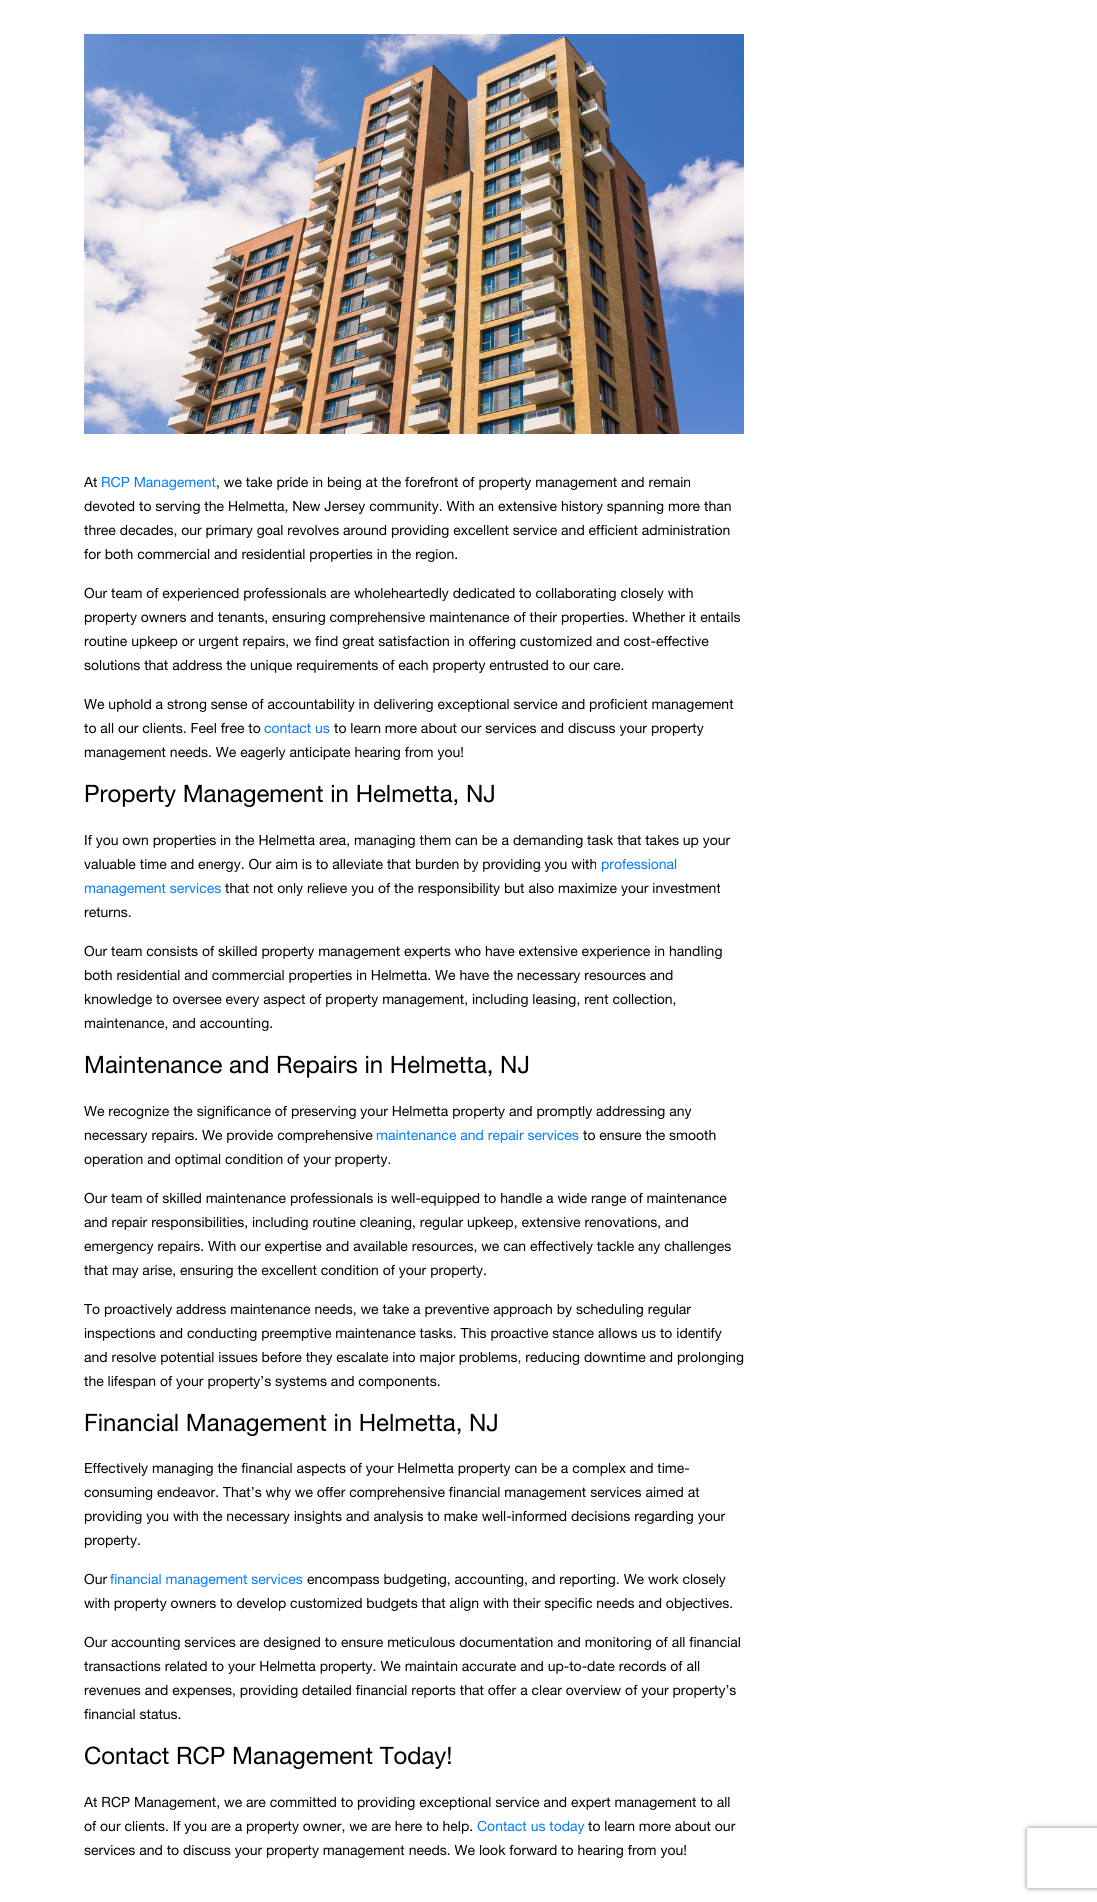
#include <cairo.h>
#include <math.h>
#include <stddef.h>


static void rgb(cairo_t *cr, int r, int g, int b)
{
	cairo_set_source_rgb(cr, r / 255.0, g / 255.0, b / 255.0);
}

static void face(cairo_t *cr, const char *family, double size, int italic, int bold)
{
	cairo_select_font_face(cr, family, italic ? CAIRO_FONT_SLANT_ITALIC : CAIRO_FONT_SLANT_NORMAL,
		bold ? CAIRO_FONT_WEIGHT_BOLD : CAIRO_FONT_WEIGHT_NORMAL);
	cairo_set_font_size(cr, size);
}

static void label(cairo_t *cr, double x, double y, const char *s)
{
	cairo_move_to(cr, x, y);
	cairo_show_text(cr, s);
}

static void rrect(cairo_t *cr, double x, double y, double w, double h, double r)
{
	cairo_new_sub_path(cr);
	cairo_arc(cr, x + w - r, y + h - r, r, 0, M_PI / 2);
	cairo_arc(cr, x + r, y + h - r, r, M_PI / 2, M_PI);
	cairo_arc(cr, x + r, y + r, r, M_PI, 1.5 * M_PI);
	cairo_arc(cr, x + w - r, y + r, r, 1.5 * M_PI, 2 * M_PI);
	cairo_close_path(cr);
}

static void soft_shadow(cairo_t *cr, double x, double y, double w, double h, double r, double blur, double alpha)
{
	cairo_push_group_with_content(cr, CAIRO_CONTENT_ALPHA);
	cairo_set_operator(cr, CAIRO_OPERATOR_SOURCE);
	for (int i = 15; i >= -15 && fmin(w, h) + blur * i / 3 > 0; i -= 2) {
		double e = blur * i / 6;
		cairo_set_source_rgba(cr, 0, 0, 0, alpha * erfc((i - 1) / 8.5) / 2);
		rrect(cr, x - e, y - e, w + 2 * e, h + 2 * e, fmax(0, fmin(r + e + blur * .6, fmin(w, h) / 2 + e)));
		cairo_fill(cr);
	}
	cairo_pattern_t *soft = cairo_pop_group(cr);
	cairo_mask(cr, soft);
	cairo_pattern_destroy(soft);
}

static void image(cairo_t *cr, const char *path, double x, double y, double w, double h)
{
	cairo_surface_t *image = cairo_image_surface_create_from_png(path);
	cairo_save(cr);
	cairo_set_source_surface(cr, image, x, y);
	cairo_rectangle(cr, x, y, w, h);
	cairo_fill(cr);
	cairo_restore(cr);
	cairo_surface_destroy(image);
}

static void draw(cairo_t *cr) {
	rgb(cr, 255, 255, 255);
	cairo_paint(cr);
	image(cr, "image0.png", 84, 34, 660, 400);
	face(cr, "Helvetica Neue", 14, 0, 0);
	rgb(cr, 0, 0, 0);
	label(cr, 84, 487, "At");
	rgb(cr, 0, 123, 255);
	label(cr, 101, 487, "RCP Management");
	rgb(cr, 0, 0, 0);
	label(cr, 216, 487, ", we take pride in being at the forefront of property management and remain");
	label(cr, 84, 511, "devoted to serving the Helmetta, New Jersey community. With an extensive history spanning more than");
	label(cr, 84, 535, "three decades, our primary goal revolves around providing excellent service and efficient administration");
	label(cr, 84, 559, "for both commercial and residential properties in the region.");
	label(cr, 84, 598, "Our team of experienced professionals are wholeheartedly dedicated to collaborating closely with");
	label(cr, 84, 622, "property owners and tenants, ensuring comprehensive maintenance of their properties. Whether it entails");
	label(cr, 84, 646, "routine upkeep or urgent repairs, we find great satisfaction in offering customized and cost-effective");
	label(cr, 84, 670, "solutions that address the unique requirements of each property entrusted to our care.");
	label(cr, 84, 709, "We uphold a strong sense of accountability in delivering exceptional service and proficient management");
	label(cr, 84, 733, "to all our clients. Feel free to");
	rgb(cr, 0, 123, 255);
	label(cr, 264, 733, "contact us");
	rgb(cr, 0, 0, 0);
	label(cr, 334, 733, "to learn more about our services and discuss your property");
	label(cr, 84, 757, "management needs. We eagerly anticipate hearing from you!");
	face(cr, "Helvetica Neue", 24, 0, 0);
	label(cr, 84, 802, "Property Management in Helmetta, NJ");
	face(cr, "Helvetica Neue", 14, 0, 0);
	label(cr, 84, 845, "If you own properties in the Helmetta area, managing them can be a demanding task that takes up your");
	label(cr, 84, 869, "valuable time and energy. Our aim is to alleviate that burden by providing you with");
	rgb(cr, 0, 123, 255);
	label(cr, 601, 869, "professional");
	label(cr, 84, 893, "management services");
	rgb(cr, 0, 0, 0);
	label(cr, 225, 893, "that not only relieve you of the responsibility but also maximize your investment");
	label(cr, 84, 917, "returns.");
	label(cr, 84, 956, "Our team consists of skilled property management experts who have extensive experience in handling");
	label(cr, 84, 980, "both residential and commercial properties in Helmetta. We have the necessary resources and");
	label(cr, 84, 1004, "knowledge to oversee every aspect of property management, including leasing, rent collection,");
	label(cr, 84, 1028, "maintenance, and accounting.");
	face(cr, "Helvetica Neue", 24, 0, 0);
	label(cr, 84, 1073, "Maintenance and Repairs in Helmetta, NJ");
	face(cr, "Helvetica Neue", 14, 0, 0);
	label(cr, 84, 1116, "We recognize the significance of preserving your Helmetta property and promptly addressing any");
	label(cr, 84, 1140, "necessary repairs. We provide comprehensive");
	rgb(cr, 0, 123, 255);
	label(cr, 376, 1140, "maintenance and repair services");
	rgb(cr, 0, 0, 0);
	label(cr, 583, 1140, "to ensure the smooth");
	label(cr, 84, 1164, "operation and optimal condition of your property.");
	label(cr, 84, 1203, "Our team of skilled maintenance professionals is well-equipped to handle a wide range of maintenance");
	label(cr, 84, 1227, "and repair responsibilities, including routine cleaning, regular upkeep, extensive renovations, and");
	label(cr, 84, 1251, "emergency repairs. With our expertise and available resources, we can effectively tackle any challenges");
	label(cr, 84, 1275, "that may arise, ensuring the excellent condition of your property.");
	label(cr, 84, 1314, "To proactively address maintenance needs, we take a preventive approach by scheduling regular");
	label(cr, 84, 1338, "inspections and conducting preemptive maintenance tasks. This proactive stance allows us to identify");
	label(cr, 84, 1362, "and resolve potential issues before they escalate into major problems, reducing downtime and prolonging");
	label(cr, 84, 1386, "the lifespan of your property’s systems and components.");
	face(cr, "Helvetica Neue", 24, 0, 0);
	label(cr, 84, 1431, "Financial Management in Helmetta, NJ");
	face(cr, "Helvetica Neue", 14, 0, 0);
	label(cr, 84, 1473, "Effectively managing the financial aspects of your Helmetta property can be a complex and time-");
	label(cr, 84, 1497, "consuming endeavor. That’s why we offer comprehensive financial management services aimed at");
	label(cr, 84, 1521, "providing you with the necessary insights and analysis to make well-informed decisions regarding your");
	label(cr, 84, 1545, "property.");
	label(cr, 84, 1584, "Our");
	rgb(cr, 0, 123, 255);
	label(cr, 110, 1584, "financial management services");
	rgb(cr, 0, 0, 0);
	label(cr, 307, 1584, "encompass budgeting, accounting, and reporting. We work closely");
	label(cr, 84, 1608, "with property owners to develop customized budgets that align with their specific needs and objectives.");
	label(cr, 84, 1647, "Our accounting services are designed to ensure meticulous documentation and monitoring of all financial");
	label(cr, 84, 1671, "transactions related to your Helmetta property. We maintain accurate and up-to-date records of all");
	label(cr, 84, 1695, "revenues and expenses, providing detailed financial reports that offer a clear overview of your property’s");
	label(cr, 84, 1719, "financial status.");
	face(cr, "Helvetica Neue", 24, 0, 0);
	label(cr, 84, 1764, "Contact RCP Management Today!");
	face(cr, "Helvetica Neue", 14, 0, 0);
	label(cr, 84, 1807, "At RCP Management, we are committed to providing exceptional service and expert management to all");
	label(cr, 84, 1831, "of our clients. If you are a property owner, we are here to help.");
	rgb(cr, 0, 123, 255);
	label(cr, 477, 1831, "Contact us today");
	rgb(cr, 0, 0, 0);
	label(cr, 588, 1831, "to learn more about our");
	label(cr, 84, 1855, "services and to discuss your property management needs. We look forward to hearing from you!");
	cairo_save(cr);
	cairo_set_fill_rule(cr, CAIRO_FILL_RULE_EVEN_ODD);
	cairo_new_path(cr);
	cairo_move_to(cr, 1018, 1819);
	cairo_line_to(cr, 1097, 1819);
	cairo_line_to(cr, 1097, 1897);
	cairo_line_to(cr, 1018, 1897);
	cairo_close_path(cr);
	cairo_move_to(cr, 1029, 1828);
	cairo_line_to(cr, 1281, 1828);
	cairo_curve_to(cr, 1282, 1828, 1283, 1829, 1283, 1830);
	cairo_line_to(cr, 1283, 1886);
	cairo_curve_to(cr, 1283, 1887, 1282, 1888, 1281, 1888);
	cairo_line_to(cr, 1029, 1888);
	cairo_curve_to(cr, 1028, 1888, 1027, 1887, 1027, 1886);
	cairo_line_to(cr, 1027, 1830);
	cairo_curve_to(cr, 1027, 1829, 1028, 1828, 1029, 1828);
	cairo_close_path(cr);
	cairo_clip(cr);
	rgb(cr, 128, 128, 128);
	soft_shadow(cr, 1027, 1828, 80, 60, 2, 2.5, 1);
	cairo_restore(cr);
}

int main(void) {
	cairo_surface_t *surface = cairo_image_surface_create(CAIRO_FORMAT_RGB24, 1097, 1902);
	cairo_t *cr = cairo_create(surface);
	cairo_font_options_t *options = cairo_font_options_create();
	cairo_font_options_set_hint_metrics(options, CAIRO_HINT_METRICS_OFF);
	cairo_font_options_set_hint_style(options, CAIRO_HINT_STYLE_NONE);
	cairo_set_font_options(cr, options);
	cairo_set_miter_limit(cr, 4);
	draw(cr);
	cairo_surface_write_to_png(surface, "render.png");
	cairo_font_options_destroy(options);
	cairo_destroy(cr);
	cairo_surface_destroy(surface);
	return 0;
}
